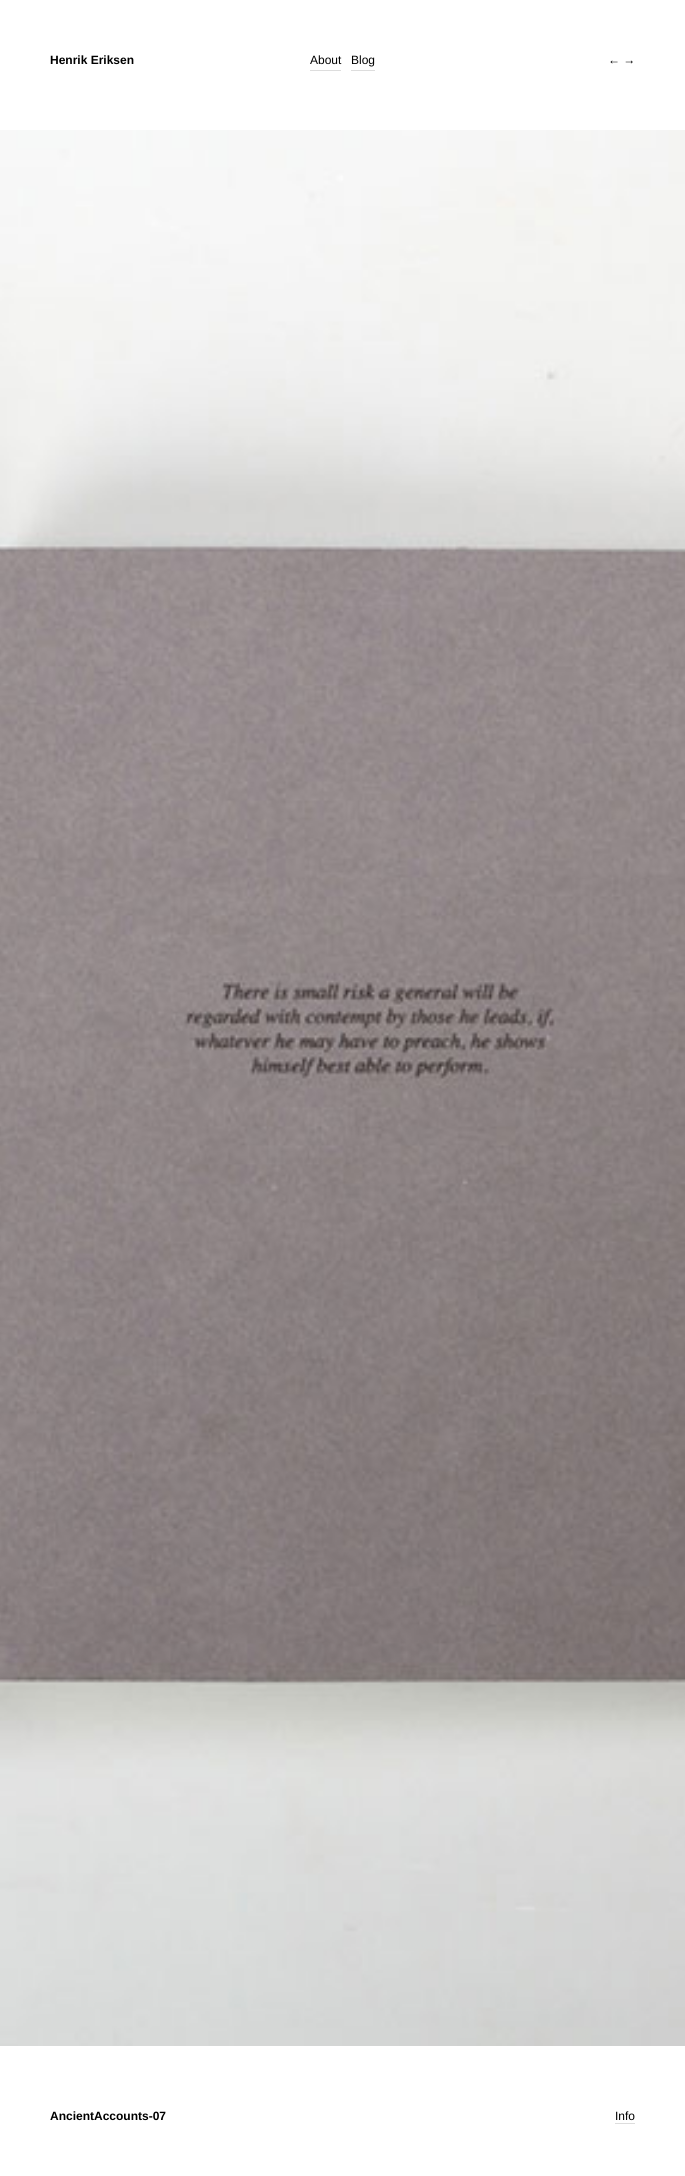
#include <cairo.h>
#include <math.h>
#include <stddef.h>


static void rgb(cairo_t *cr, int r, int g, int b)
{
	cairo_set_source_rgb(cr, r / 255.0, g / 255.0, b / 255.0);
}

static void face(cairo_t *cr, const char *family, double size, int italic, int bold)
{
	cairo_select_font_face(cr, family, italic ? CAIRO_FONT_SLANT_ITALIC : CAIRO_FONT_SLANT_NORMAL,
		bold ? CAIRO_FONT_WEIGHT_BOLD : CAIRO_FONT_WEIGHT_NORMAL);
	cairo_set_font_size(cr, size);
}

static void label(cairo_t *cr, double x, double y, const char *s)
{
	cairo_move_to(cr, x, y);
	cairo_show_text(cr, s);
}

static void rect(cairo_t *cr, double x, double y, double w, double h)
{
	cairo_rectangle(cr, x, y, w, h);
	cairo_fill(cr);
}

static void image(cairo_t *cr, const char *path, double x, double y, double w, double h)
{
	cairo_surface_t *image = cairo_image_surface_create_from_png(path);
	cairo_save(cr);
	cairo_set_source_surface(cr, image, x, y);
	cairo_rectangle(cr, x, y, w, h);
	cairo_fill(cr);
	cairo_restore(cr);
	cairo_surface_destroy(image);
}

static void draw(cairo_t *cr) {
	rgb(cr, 255, 255, 255);
	cairo_paint(cr);
	face(cr, "Liberation Sans", 12, 0, 1);
	rgb(cr, 0, 0, 0);
	label(cr, 50, 64, "Henrik Eriksen");
	rgb(cr, 221, 221, 221);
	rect(cr, 310, 70, 31, 1);
	face(cr, "Liberation Sans", 12, 0, 0);
	rgb(cr, 0, 0, 0);
	label(cr, 310, 64, "About");
	rgb(cr, 221, 221, 221);
	rect(cr, 351, 70, 24, 1);
	rgb(cr, 0, 0, 0);
	label(cr, 351, 64, "Blog");
	face(cr, "Liberation Sans", 12, 0, 1);
	label(cr, 608, 64, "← →");
	image(cr, "image0.png", 0, 130, 685, 1916);
	label(cr, 50, 2120, "AncientAccounts-07");
	face(cr, "Liberation Sans", 12, 0, 0);
	label(cr, 615, 2120, "Info");
	rgb(cr, 221, 221, 221);
	rect(cr, 615, 2123, 20, 1);
}

int main(void) {
	cairo_surface_t *surface = cairo_image_surface_create(CAIRO_FORMAT_RGB24, 685, 2176);
	cairo_t *cr = cairo_create(surface);
	cairo_font_options_t *options = cairo_font_options_create();
	cairo_font_options_set_hint_metrics(options, CAIRO_HINT_METRICS_OFF);
	cairo_font_options_set_hint_style(options, CAIRO_HINT_STYLE_NONE);
	cairo_set_font_options(cr, options);
	cairo_set_miter_limit(cr, 4);
	draw(cr);
	cairo_surface_write_to_png(surface, "render.png");
	cairo_font_options_destroy(options);
	cairo_destroy(cr);
	cairo_surface_destroy(surface);
	return 0;
}
